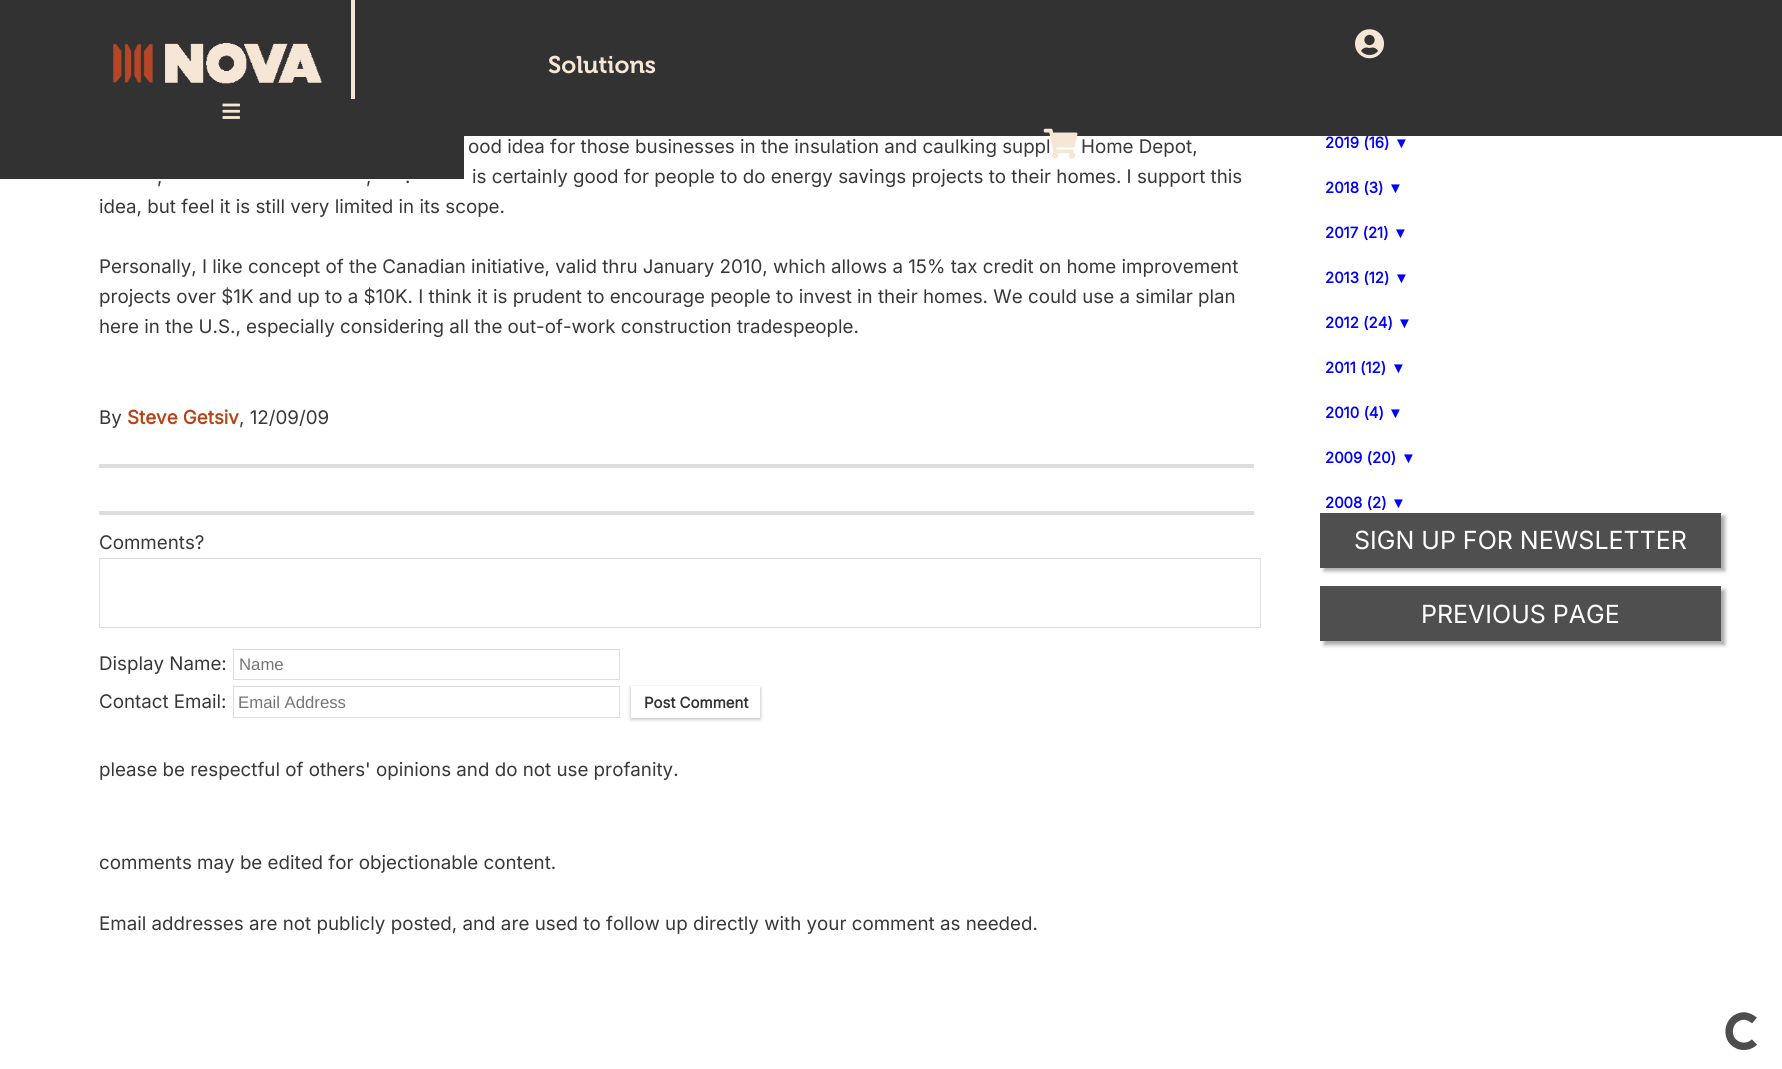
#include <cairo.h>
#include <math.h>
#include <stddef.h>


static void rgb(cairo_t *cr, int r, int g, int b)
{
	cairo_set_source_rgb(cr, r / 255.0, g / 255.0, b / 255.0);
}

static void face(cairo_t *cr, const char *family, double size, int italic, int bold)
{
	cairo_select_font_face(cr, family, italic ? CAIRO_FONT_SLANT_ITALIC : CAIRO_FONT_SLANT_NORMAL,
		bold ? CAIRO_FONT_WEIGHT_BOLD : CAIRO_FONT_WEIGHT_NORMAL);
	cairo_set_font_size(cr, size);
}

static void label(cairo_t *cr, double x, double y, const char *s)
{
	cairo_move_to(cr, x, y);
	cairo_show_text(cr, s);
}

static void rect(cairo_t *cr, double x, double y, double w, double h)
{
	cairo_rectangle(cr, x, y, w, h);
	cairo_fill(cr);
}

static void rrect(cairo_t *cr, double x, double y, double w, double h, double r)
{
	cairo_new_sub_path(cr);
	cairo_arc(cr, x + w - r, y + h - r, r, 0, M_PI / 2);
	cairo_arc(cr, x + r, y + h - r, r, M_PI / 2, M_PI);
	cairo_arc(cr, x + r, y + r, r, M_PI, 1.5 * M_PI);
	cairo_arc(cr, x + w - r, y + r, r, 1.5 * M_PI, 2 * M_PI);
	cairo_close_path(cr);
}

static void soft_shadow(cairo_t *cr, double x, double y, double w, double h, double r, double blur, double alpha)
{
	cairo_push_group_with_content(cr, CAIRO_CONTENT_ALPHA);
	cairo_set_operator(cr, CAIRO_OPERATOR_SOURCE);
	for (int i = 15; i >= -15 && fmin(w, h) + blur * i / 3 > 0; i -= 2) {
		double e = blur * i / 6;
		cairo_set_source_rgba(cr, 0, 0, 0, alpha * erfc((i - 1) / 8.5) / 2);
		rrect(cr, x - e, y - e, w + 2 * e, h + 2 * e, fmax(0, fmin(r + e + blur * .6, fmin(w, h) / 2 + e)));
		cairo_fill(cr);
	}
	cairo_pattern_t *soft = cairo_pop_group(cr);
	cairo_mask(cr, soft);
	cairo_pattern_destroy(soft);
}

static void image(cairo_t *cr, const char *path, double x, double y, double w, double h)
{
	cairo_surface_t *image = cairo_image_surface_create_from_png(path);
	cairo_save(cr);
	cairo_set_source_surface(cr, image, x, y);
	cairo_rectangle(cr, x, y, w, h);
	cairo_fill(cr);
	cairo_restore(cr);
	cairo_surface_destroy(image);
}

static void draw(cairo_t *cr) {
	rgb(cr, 255, 255, 255);
	cairo_paint(cr);
	face(cr, "Inter", 15, 0, 1);
	rgb(cr, 0, 0, 255);
	label(cr, 1325, 148, "2019 (16)");
	rgb(cr, 50, 50, 50);
	rect(cr, 0, 0, 1782, 136);
	rgb(cr, 246, 230, 213);
	rect(cr, 351, 0, 4, 99);
	image(cr, "image0.png", 113, 43, 209, 41);
	image(cr, "image1.png", 1355, 29, 30, 30);
	face(cr, "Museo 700 SemiBold", 24, 0, 0);
	label(cr, 548, 73, "Solutions");
	rgb(cr, 50, 50, 50);
	rect(cr, 0, 136, 464, 43);
	image(cr, "image2.png", 222, 103, 18, 16);
	face(cr, "Inter", 18.75, 0, 0);
	rgb(cr, 56, 56, 56);
	label(cr, 468, 153, "ood idea for those businesses in the insulation and caulking suppl");
	image(cr, "image3.png", 1043, 128, 35, 31);
	label(cr, 1081, 153, "Home Depot,");
	label(cr, 157, 183, ",");
	label(cr, 366, 183, ",");
	label(cr, 405, 183, ".");
	label(cr, 472, 183, "is certainly good for people to do energy savings projects to their homes. I support this");
	label(cr, 99, 213, "idea, but feel it is still very limited in its scope.");
	label(cr, 99, 273, "Personally, I like concept of the Canadian initiative, valid thru January 2010, which allows a 15% tax credit on home improvement");
	label(cr, 99, 303, "projects over $1K and up to a $10K. I think it is prudent to encourage people to invest in their homes. We could use a similar plan");
	label(cr, 99, 333, "here in the U.S., especially considering all the out-of-work construction tradespeople.");
	label(cr, 99, 424, "By");
	face(cr, "Inter", 18.75, 0, 1);
	rgb(cr, 181, 70, 26);
	label(cr, 127, 424, "Steve Getsiv");
	face(cr, "Inter", 18.75, 0, 0);
	rgb(cr, 56, 56, 56);
	label(cr, 239, 424, ", 12/09/09");
	rgb(cr, 221, 221, 221);
	rect(cr, 99, 464, 1155, 4);
	rect(cr, 99, 511, 1155, 4);
	rgb(cr, 56, 56, 56);
	label(cr, 99, 549, "Comments?");
	cairo_rectangle(cr, 99.5, 558.5, 1161, 69);
	rgb(cr, 221, 221, 221);
	cairo_set_line_width(cr, 1);
	cairo_stroke(cr);
	rgb(cr, 56, 56, 56);
	label(cr, 99, 670, "Display Name:");
	cairo_rectangle(cr, 233.5, 649.5, 386, 30);
	rgb(cr, 221, 221, 221);
	cairo_stroke(cr);
	face(cr, "Liberation Sans", 16.75, 0, 0);
	rgb(cr, 117, 117, 117);
	label(cr, 239, 670, "Name");
	face(cr, "Inter", 18.75, 0, 0);
	rgb(cr, 56, 56, 56);
	label(cr, 99, 708, "Contact Email:");
	cairo_rectangle(cr, 233.5, 686.5, 386, 31);
	rgb(cr, 221, 221, 221);
	cairo_stroke(cr);
	face(cr, "Liberation Sans", 16.75, 0, 0);
	rgb(cr, 117, 117, 117);
	label(cr, 238, 708, "Email Address");
	rgb(cr, 0, 0, 0);
	soft_shadow(cr, 631, 688, 129, 31, 0, 2, 0.3);
	rgb(cr, 255, 255, 255);
	rect(cr, 631, 686, 129, 32);
	face(cr, "Inter", 15, 0, 1);
	rgb(cr, 50, 50, 50);
	label(cr, 644, 708, "Post Comment");
	face(cr, "Inter", 18.75, 0, 0);
	rgb(cr, 56, 56, 56);
	label(cr, 99, 776, "please be respectful of others' opinions and do not use profanity.");
	label(cr, 99, 869, "comments may be edited for objectionable content.");
	label(cr, 99, 930, "Email addresses are not publicly posted, and are used to follow up directly with your comment as needed.");
	face(cr, "Liberation Sans", 15, 0, 1);
	rgb(cr, 0, 0, 255);
	label(cr, 1394, 148, "▼");
	face(cr, "Inter", 15, 0, 1);
	label(cr, 1325, 193, "2018 (3)");
	face(cr, "Liberation Sans", 15, 0, 1);
	label(cr, 1388, 193, "▼");
	face(cr, "Inter", 15, 0, 1);
	label(cr, 1325, 238, "2017 (21)");
	face(cr, "Liberation Sans", 15, 0, 1);
	label(cr, 1393, 238, "▼");
	face(cr, "Inter", 15, 0, 1);
	label(cr, 1325, 283, "2013 (12)");
	face(cr, "Liberation Sans", 15, 0, 1);
	label(cr, 1394, 283, "▼");
	face(cr, "Inter", 15, 0, 1);
	label(cr, 1325, 328, "2012 (24)");
	face(cr, "Liberation Sans", 15, 0, 1);
	label(cr, 1397, 328, "▼");
	face(cr, "Inter", 15, 0, 1);
	label(cr, 1325, 373, "2011 (12)");
	face(cr, "Liberation Sans", 15, 0, 1);
	label(cr, 1391, 373, "▼");
	face(cr, "Inter", 15, 0, 1);
	label(cr, 1325, 418, "2010 (4)");
	face(cr, "Liberation Sans", 15, 0, 1);
	label(cr, 1388, 418, "▼");
	face(cr, "Inter", 15, 0, 1);
	label(cr, 1325, 463, "2009 (20)");
	face(cr, "Liberation Sans", 15, 0, 1);
	label(cr, 1401, 463, "▼");
	rgb(cr, 170, 170, 170);
	soft_shadow(cr, 1324, 516, 401, 55, 0, 2, 1);
	face(cr, "Inter", 15, 0, 1);
	rgb(cr, 0, 0, 255);
	label(cr, 1325, 508, "2008 (2)");
	face(cr, "Liberation Sans", 15, 0, 1);
	label(cr, 1391, 508, "▼");
	rgb(cr, 79, 79, 80);
	rect(cr, 1320, 513, 401, 55);
	face(cr, "Inter", 25, 0, 0);
	rgb(cr, 255, 255, 255);
	label(cr, 1354, 549, "SIGN UP FOR NEWSLETTER");
	rgb(cr, 170, 170, 170);
	soft_shadow(cr, 1324, 590, 401, 55, 0, 2, 1);
	rgb(cr, 79, 79, 80);
	rect(cr, 1320, 586, 401, 55);
	rgb(cr, 255, 255, 255);
	label(cr, 1421, 623, "PREVIOUS PAGE");
	cairo_new_path(cr);
	cairo_move_to(cr, 1754.5, 1042);
	cairo_curve_to(cr, 1751, 1045.5, 1745.5, 1047, 1741, 1046);
	cairo_curve_to(cr, 1723.5, 1042.5, 1726, 1016.5, 1744, 1016);
	cairo_curve_to(cr, 1747.5, 1016, 1751.5, 1018, 1754.5, 1020.5);
	rgb(cr, 77, 77, 77);
	cairo_set_line_width(cr, 7.5);
	cairo_stroke(cr);
}

int main(void) {
	cairo_surface_t *surface = cairo_image_surface_create(CAIRO_FORMAT_RGB24, 1782, 1069);
	cairo_t *cr = cairo_create(surface);
	cairo_font_options_t *options = cairo_font_options_create();
	cairo_font_options_set_hint_metrics(options, CAIRO_HINT_METRICS_OFF);
	cairo_font_options_set_hint_style(options, CAIRO_HINT_STYLE_NONE);
	cairo_set_font_options(cr, options);
	cairo_set_miter_limit(cr, 4);
	draw(cr);
	cairo_surface_write_to_png(surface, "render.png");
	cairo_font_options_destroy(options);
	cairo_destroy(cr);
	cairo_surface_destroy(surface);
	return 0;
}
